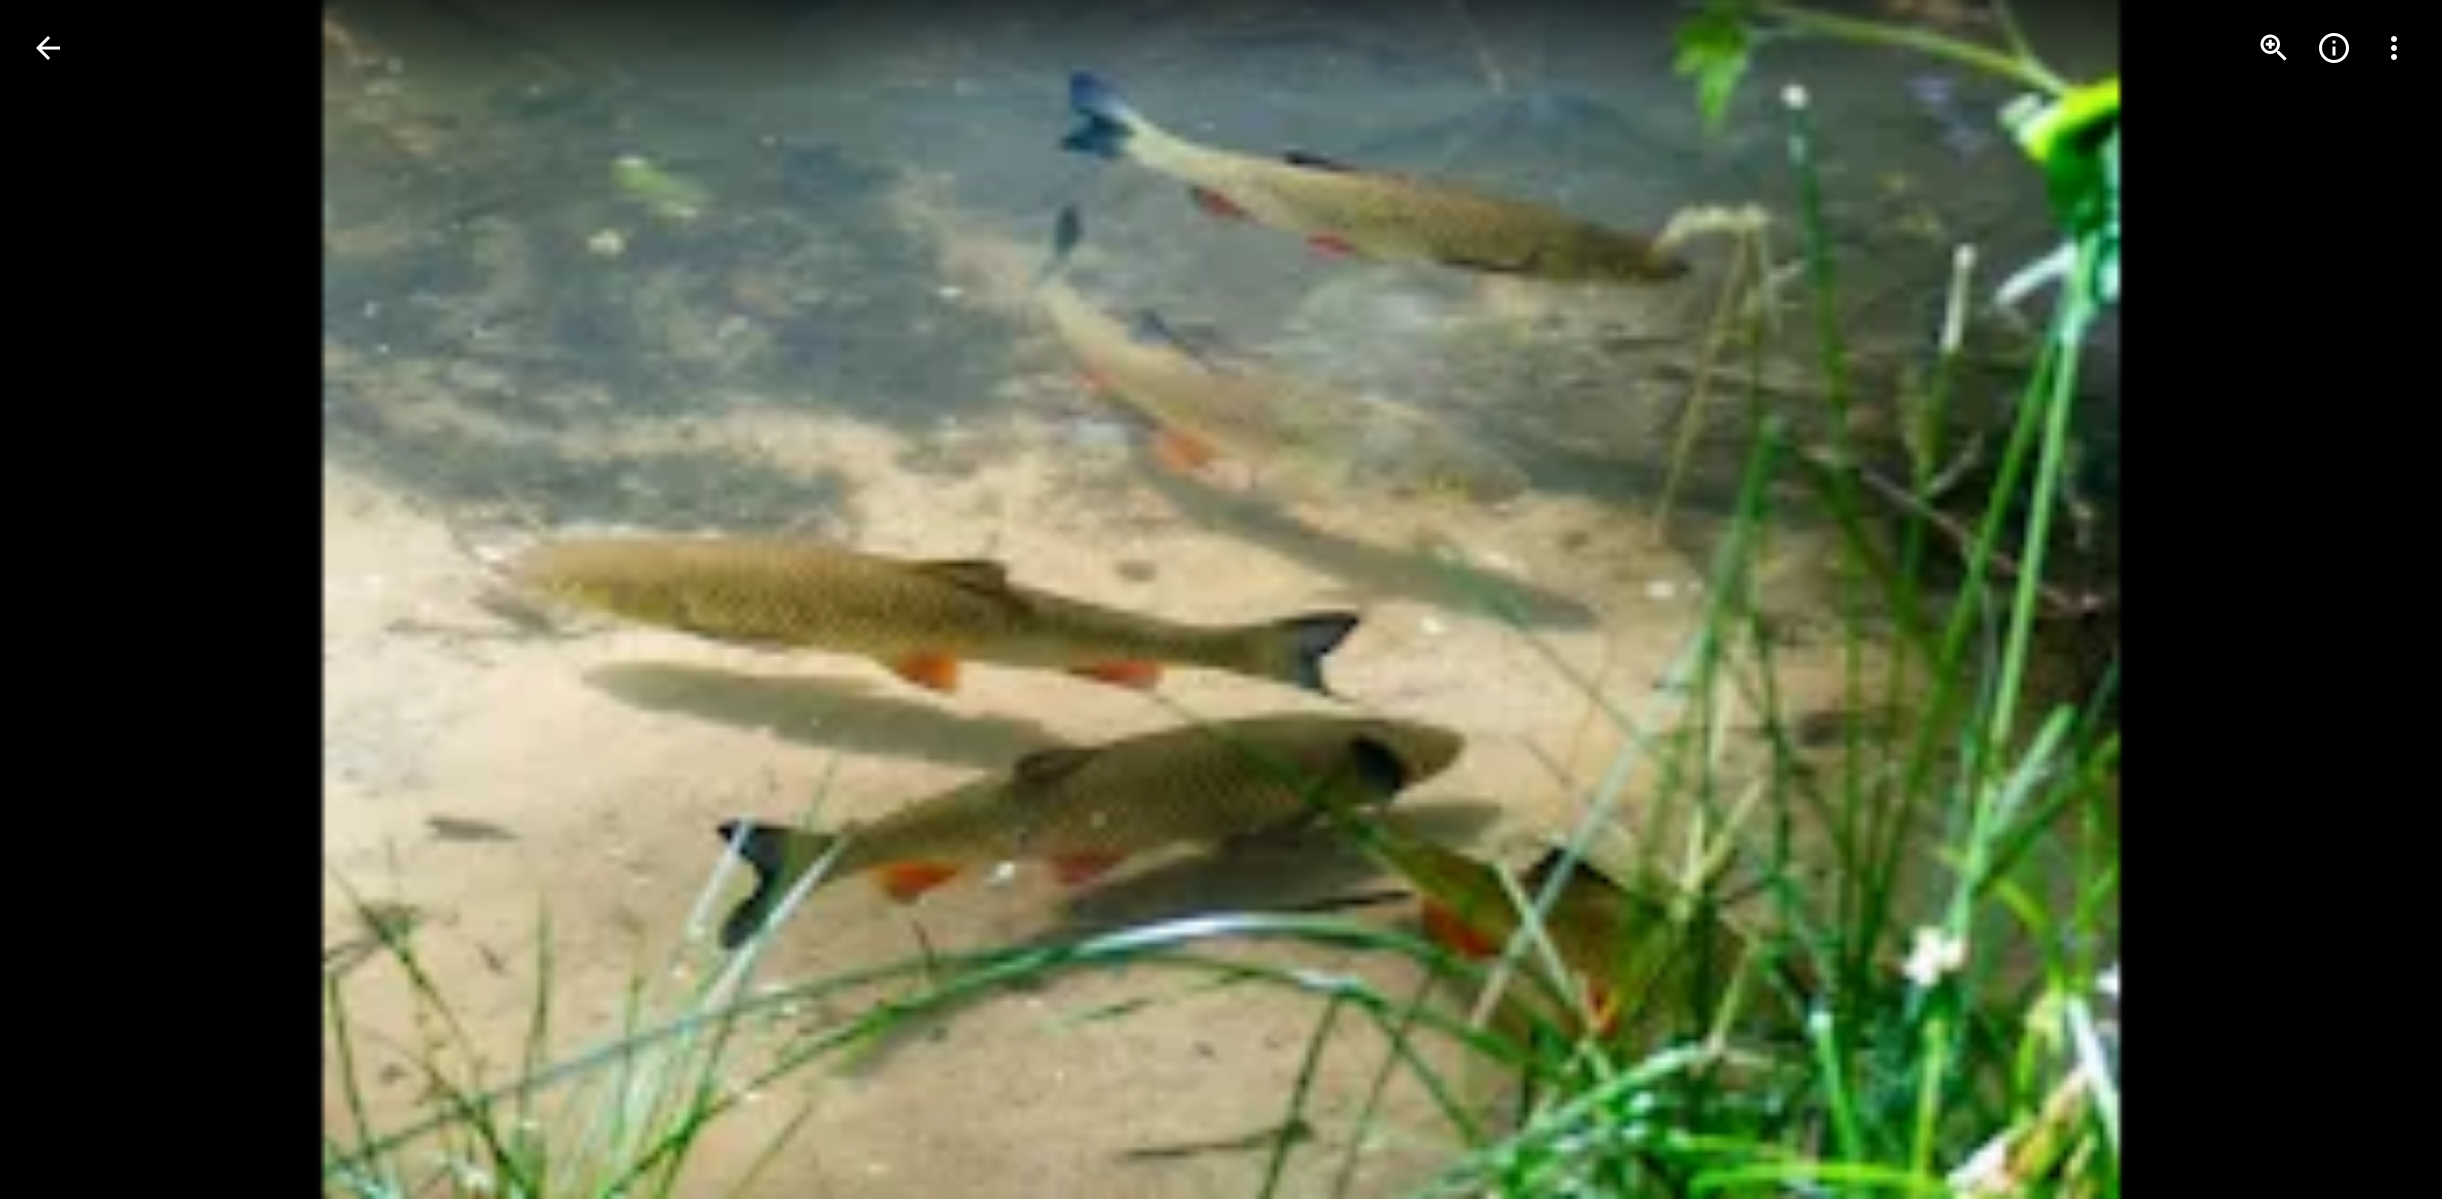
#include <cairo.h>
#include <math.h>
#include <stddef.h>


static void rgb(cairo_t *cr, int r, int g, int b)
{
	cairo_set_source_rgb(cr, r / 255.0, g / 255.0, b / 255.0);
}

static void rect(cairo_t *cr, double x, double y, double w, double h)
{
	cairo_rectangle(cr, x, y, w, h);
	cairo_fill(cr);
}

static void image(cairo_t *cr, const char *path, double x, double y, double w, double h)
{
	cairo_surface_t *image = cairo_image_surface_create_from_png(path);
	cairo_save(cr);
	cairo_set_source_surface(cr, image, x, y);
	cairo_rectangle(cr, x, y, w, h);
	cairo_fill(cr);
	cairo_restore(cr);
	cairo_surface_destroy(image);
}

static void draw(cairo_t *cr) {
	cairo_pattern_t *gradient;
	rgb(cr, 0, 0, 0);
	cairo_paint(cr);
	image(cr, "image4.png", 316, 0, 1810, 1199);
	gradient = cairo_pattern_create_linear(1221, 0, 1221, 96);
	cairo_pattern_add_color_stop_rgba(gradient, 0, 0, 0, 0, 0.6);
	cairo_pattern_add_color_stop_rgba(gradient, 1, 0, 0, 0, 0);
	cairo_set_source(cr, gradient);
	cairo_pattern_destroy(gradient);
	rect(cr, 317, 0, 1806, 93);
	image(cr, "image0.png", 36, 36, 24, 24);
	image(cr, "image1.png", 2260, 34, 27, 27);
	image(cr, "image2.png", 2319, 33, 30, 30);
	image(cr, "image3.png", 2391, 36, 6, 24);
}

int main(void) {
	cairo_surface_t *surface = cairo_image_surface_create(CAIRO_FORMAT_RGB24, 2442, 1199);
	cairo_t *cr = cairo_create(surface);
	cairo_font_options_t *options = cairo_font_options_create();
	cairo_font_options_set_hint_metrics(options, CAIRO_HINT_METRICS_OFF);
	cairo_font_options_set_hint_style(options, CAIRO_HINT_STYLE_NONE);
	cairo_set_font_options(cr, options);
	cairo_set_miter_limit(cr, 4);
	draw(cr);
	cairo_surface_write_to_png(surface, "render.png");
	cairo_font_options_destroy(options);
	cairo_destroy(cr);
	cairo_surface_destroy(surface);
	return 0;
}
